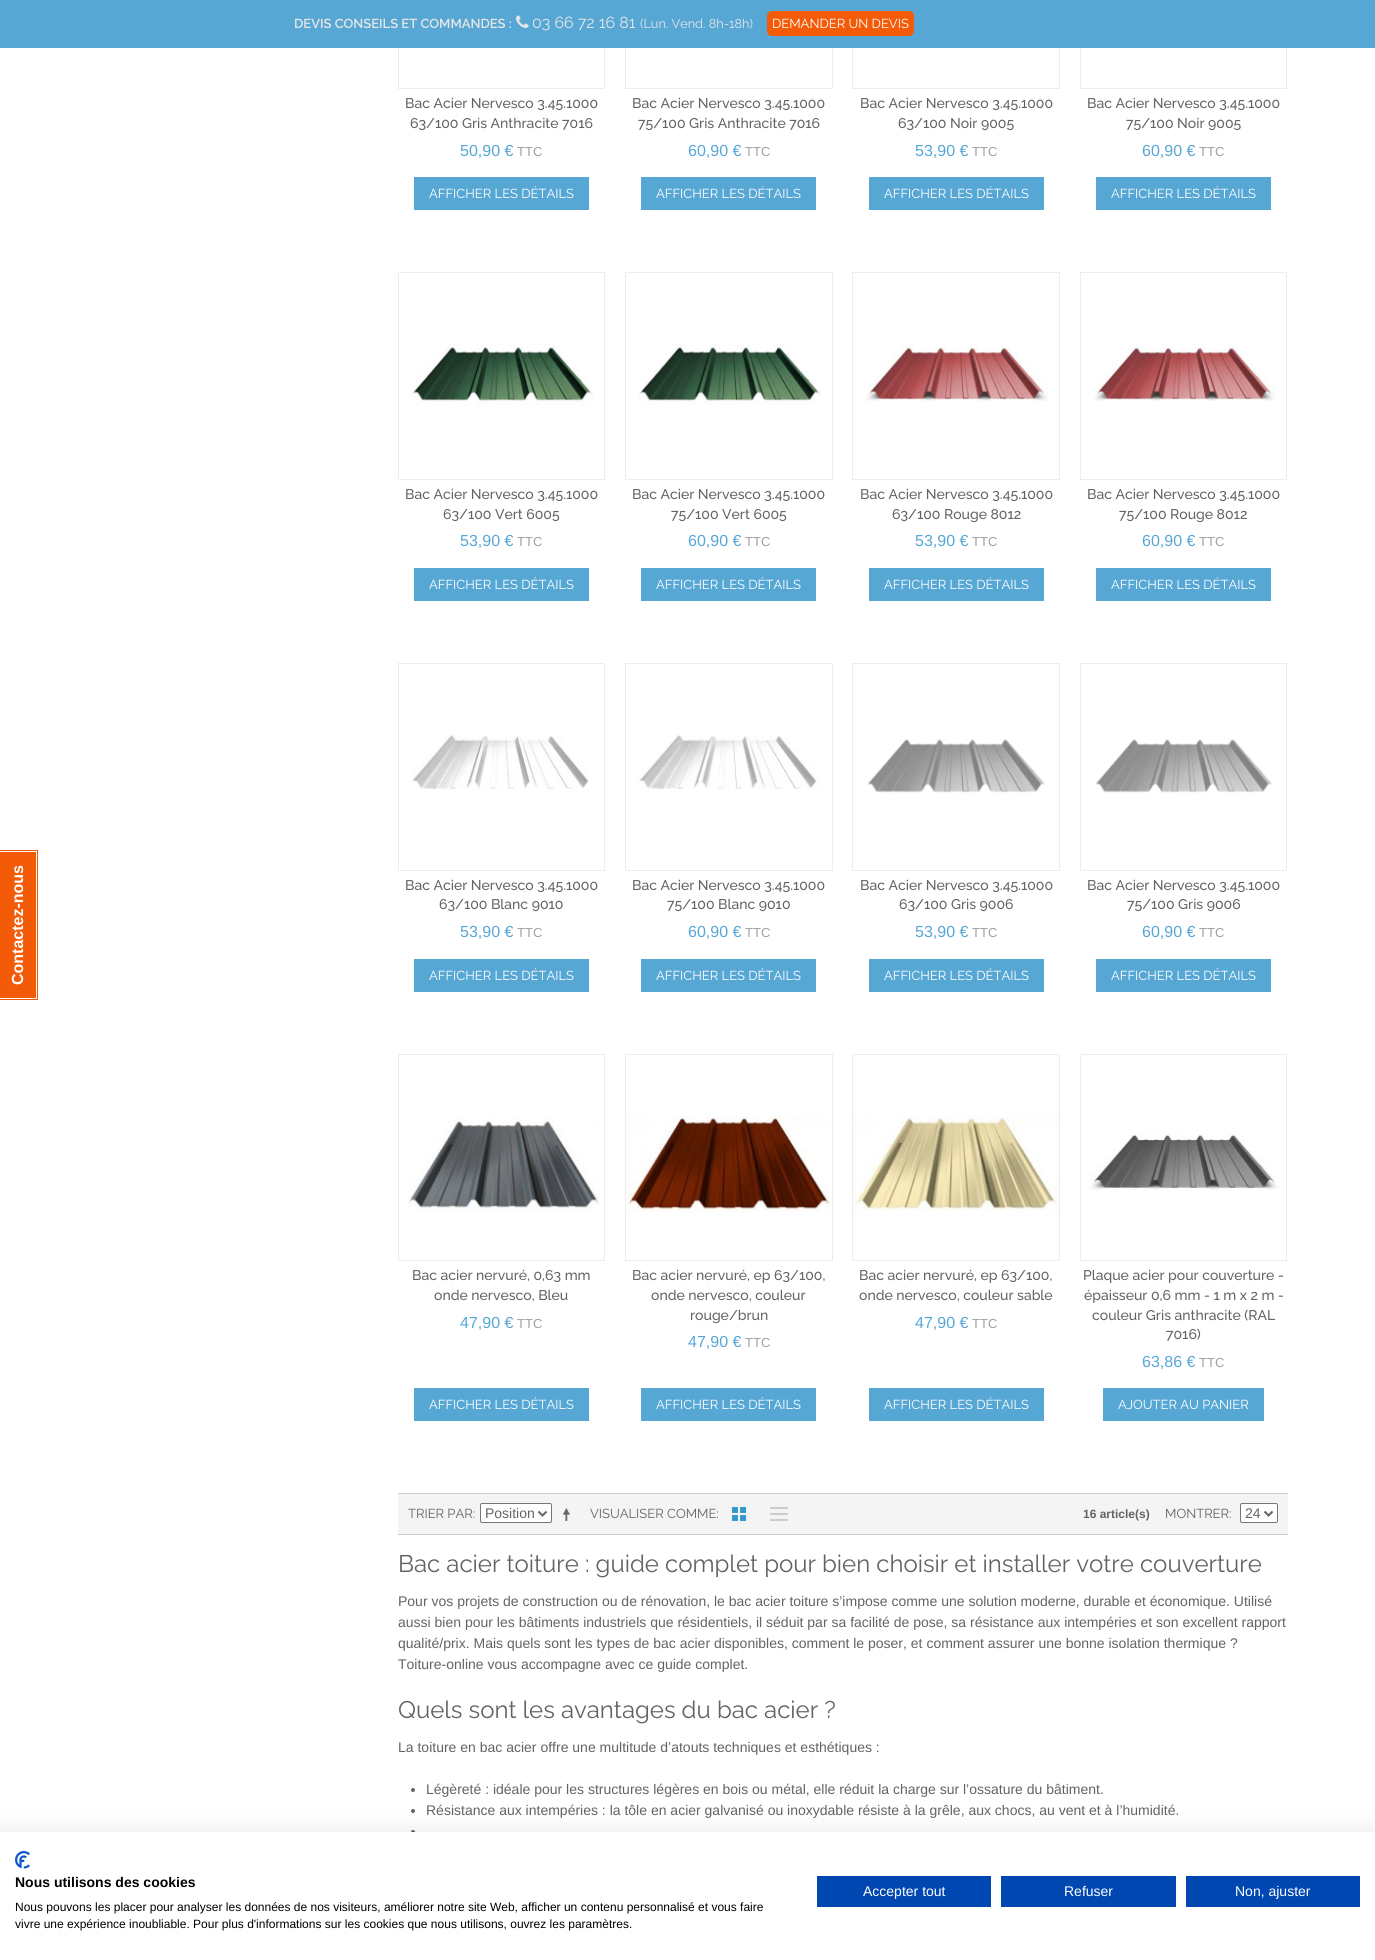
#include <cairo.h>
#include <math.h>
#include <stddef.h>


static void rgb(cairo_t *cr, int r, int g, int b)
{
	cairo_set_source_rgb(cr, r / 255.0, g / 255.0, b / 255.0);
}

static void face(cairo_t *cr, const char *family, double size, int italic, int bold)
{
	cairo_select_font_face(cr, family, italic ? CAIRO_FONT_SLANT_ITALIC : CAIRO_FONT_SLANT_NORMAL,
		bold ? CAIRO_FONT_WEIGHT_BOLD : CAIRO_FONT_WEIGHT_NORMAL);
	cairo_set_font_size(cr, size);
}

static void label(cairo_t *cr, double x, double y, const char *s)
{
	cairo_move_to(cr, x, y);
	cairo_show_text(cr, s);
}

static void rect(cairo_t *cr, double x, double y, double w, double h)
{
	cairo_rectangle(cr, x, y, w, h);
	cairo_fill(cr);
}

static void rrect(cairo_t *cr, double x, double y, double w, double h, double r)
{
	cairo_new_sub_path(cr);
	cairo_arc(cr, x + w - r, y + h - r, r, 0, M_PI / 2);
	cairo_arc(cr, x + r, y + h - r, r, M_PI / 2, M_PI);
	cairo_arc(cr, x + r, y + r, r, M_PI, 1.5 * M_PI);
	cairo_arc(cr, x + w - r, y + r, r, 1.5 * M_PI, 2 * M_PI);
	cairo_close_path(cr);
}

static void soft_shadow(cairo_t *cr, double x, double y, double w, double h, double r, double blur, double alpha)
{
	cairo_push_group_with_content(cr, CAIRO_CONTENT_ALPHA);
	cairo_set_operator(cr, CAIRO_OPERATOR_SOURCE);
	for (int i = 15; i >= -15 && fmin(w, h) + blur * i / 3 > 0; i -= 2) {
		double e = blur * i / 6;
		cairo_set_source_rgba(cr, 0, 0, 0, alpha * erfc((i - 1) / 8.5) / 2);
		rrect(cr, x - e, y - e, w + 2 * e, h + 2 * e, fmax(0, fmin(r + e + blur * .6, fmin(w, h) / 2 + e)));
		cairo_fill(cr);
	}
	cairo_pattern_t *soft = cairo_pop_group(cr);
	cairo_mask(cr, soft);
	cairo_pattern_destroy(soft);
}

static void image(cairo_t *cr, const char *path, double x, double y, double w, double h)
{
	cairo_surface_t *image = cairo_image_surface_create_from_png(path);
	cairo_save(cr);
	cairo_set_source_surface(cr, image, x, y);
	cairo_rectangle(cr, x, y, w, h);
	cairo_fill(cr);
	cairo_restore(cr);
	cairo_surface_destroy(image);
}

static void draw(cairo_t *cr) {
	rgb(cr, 255, 255, 255);
	cairo_paint(cr);
	cairo_rectangle(cr, 398.5, -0.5, 206, 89);
	rgb(cr, 237, 237, 237);
	cairo_set_line_width(cr, 1);
	cairo_stroke(cr);
	cairo_rectangle(cr, 625.5, -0.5, 207, 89);
	cairo_stroke(cr);
	cairo_rectangle(cr, 852.5, -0.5, 207, 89);
	cairo_stroke(cr);
	cairo_rectangle(cr, 1080.5, -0.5, 206, 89);
	cairo_stroke(cr);
	rgb(cr, 87, 167, 213);
	rect(cr, 0, 0, 1375, 48);
	face(cr, "Raleway SemiBold", 13, 0, 0);
	rgb(cr, 230, 230, 230);
	label(cr, 294, 28, "DEVIS CONSEILS ET COMMANDES :");
	image(cr, "image0.png", 516, 15, 13, 13);
	face(cr, "Raleway", 16, 0, 0);
	label(cr, 532, 28, "03 66 72 16 81");
	face(cr, "Raleway", 12.75, 0, 0);
	label(cr, 640, 28, "(Lun. Vend. 8h-18h)");
	rgb(cr, 244, 91, 8);
	rrect(cr, 767, 11, 147, 25, 5);
	cairo_fill(cr);
	face(cr, "Raleway", 13, 0, 0);
	rgb(cr, 255, 255, 255);
	label(cr, 772, 28, "DEMANDER UN DEVIS");
	rgb(cr, 244, 91, 8);
	rect(cr, 0, 850, 38, 150);
	cairo_new_path(cr);
	cairo_move_to(cr, -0.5, 998.5);
	cairo_line_to(cr, -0.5, 851.5);
	cairo_line_to(cr, 36.5, 851.5);
	cairo_line_to(cr, 36.5, 998.5);
	cairo_close_path(cr);
	rgb(cr, 255, 255, 255);
	cairo_stroke(cr);
	face(cr, "Liberation Sans", 16, 0, 1);
	cairo_save(cr);
	cairo_translate(cr, 23, 985);
	cairo_rotate(cr, -90 * M_PI / 180);
	label(cr, 0, 0, "Contactez-nous");
	cairo_restore(cr);
	face(cr, "Raleway Medium", 14, 0, 0);
	rgb(cr, 99, 99, 99);
	label(cr, 405, 108, "Bac Acier Nervesco 3.45.1000");
	label(cr, 410, 128, "63/100 Gris Anthracite 7016");
	face(cr, "Liberation Sans", 16, 0, 0);
	rgb(cr, 87, 167, 213);
	label(cr, 460, 156, "50,90 €");
	face(cr, "Liberation Sans", 13, 0, 0);
	rgb(cr, 160, 160, 160);
	label(cr, 517, 156, "TTC");
	rgb(cr, 87, 167, 213);
	rect(cr, 414, 177, 175, 33);
	face(cr, "Raleway", 13, 0, 0);
	rgb(cr, 255, 255, 255);
	label(cr, 429, 198, "AFFICHER LES DÉTAILS");
	face(cr, "Raleway Medium", 14, 0, 0);
	rgb(cr, 99, 99, 99);
	label(cr, 632, 108, "Bac Acier Nervesco 3.45.1000");
	label(cr, 638, 128, "75/100 Gris Anthracite 7016");
	face(cr, "Liberation Sans", 16, 0, 0);
	rgb(cr, 87, 167, 213);
	label(cr, 688, 156, "60,90 €");
	face(cr, "Liberation Sans", 13, 0, 0);
	rgb(cr, 160, 160, 160);
	label(cr, 745, 156, "TTC");
	rgb(cr, 87, 167, 213);
	rect(cr, 641, 177, 175, 33);
	face(cr, "Raleway", 13, 0, 0);
	rgb(cr, 255, 255, 255);
	label(cr, 656, 198, "AFFICHER LES DÉTAILS");
	face(cr, "Raleway Medium", 14, 0, 0);
	rgb(cr, 99, 99, 99);
	label(cr, 860, 108, "Bac Acier Nervesco 3.45.1000");
	label(cr, 898, 128, "63/100 Noir 9005");
	face(cr, "Liberation Sans", 16, 0, 0);
	rgb(cr, 87, 167, 213);
	label(cr, 915, 156, "53,90 €");
	face(cr, "Liberation Sans", 13, 0, 0);
	rgb(cr, 160, 160, 160);
	label(cr, 972, 156, "TTC");
	rgb(cr, 87, 167, 213);
	rect(cr, 869, 177, 175, 33);
	face(cr, "Raleway", 13, 0, 0);
	rgb(cr, 255, 255, 255);
	label(cr, 884, 198, "AFFICHER LES DÉTAILS");
	face(cr, "Raleway Medium", 14, 0, 0);
	rgb(cr, 99, 99, 99);
	label(cr, 1087, 108, "Bac Acier Nervesco 3.45.1000");
	label(cr, 1126, 128, "75/100 Noir 9005");
	face(cr, "Liberation Sans", 16, 0, 0);
	rgb(cr, 87, 167, 213);
	label(cr, 1142, 156, "60,90 €");
	face(cr, "Liberation Sans", 13, 0, 0);
	rgb(cr, 160, 160, 160);
	label(cr, 1199, 156, "TTC");
	rgb(cr, 87, 167, 213);
	rect(cr, 1096, 177, 175, 33);
	face(cr, "Raleway", 13, 0, 0);
	rgb(cr, 255, 255, 255);
	label(cr, 1111, 198, "AFFICHER LES DÉTAILS");
	cairo_rectangle(cr, 398.5, 272.5, 206, 207);
	rgb(cr, 237, 237, 237);
	cairo_stroke(cr);
	image(cr, "image1.png", 410, 344, 184, 62);
	face(cr, "Raleway Medium", 14, 0, 0);
	rgb(cr, 99, 99, 99);
	label(cr, 405, 499, "Bac Acier Nervesco 3.45.1000");
	label(cr, 443, 519, "63/100 Vert 6005");
	face(cr, "Liberation Sans", 16, 0, 0);
	rgb(cr, 87, 167, 213);
	label(cr, 460, 546, "53,90 €");
	face(cr, "Liberation Sans", 13, 0, 0);
	rgb(cr, 160, 160, 160);
	label(cr, 517, 546, "TTC");
	rgb(cr, 87, 167, 213);
	rect(cr, 414, 568, 175, 33);
	face(cr, "Raleway", 13, 0, 0);
	rgb(cr, 255, 255, 255);
	label(cr, 429, 589, "AFFICHER LES DÉTAILS");
	cairo_rectangle(cr, 625.5, 272.5, 207, 207);
	rgb(cr, 237, 237, 237);
	cairo_stroke(cr);
	image(cr, "image2.png", 637, 344, 185, 61);
	face(cr, "Raleway Medium", 14, 0, 0);
	rgb(cr, 99, 99, 99);
	label(cr, 632, 499, "Bac Acier Nervesco 3.45.1000");
	label(cr, 671, 519, "75/100 Vert 6005");
	face(cr, "Liberation Sans", 16, 0, 0);
	rgb(cr, 87, 167, 213);
	label(cr, 688, 546, "60,90 €");
	face(cr, "Liberation Sans", 13, 0, 0);
	rgb(cr, 160, 160, 160);
	label(cr, 745, 546, "TTC");
	rgb(cr, 87, 167, 213);
	rect(cr, 641, 568, 175, 33);
	face(cr, "Raleway", 13, 0, 0);
	rgb(cr, 255, 255, 255);
	label(cr, 656, 589, "AFFICHER LES DÉTAILS");
	cairo_rectangle(cr, 852.5, 272.5, 207, 207);
	rgb(cr, 237, 237, 237);
	cairo_stroke(cr);
	image(cr, "image3.png", 866, 344, 183, 57);
	face(cr, "Raleway Medium", 14, 0, 0);
	rgb(cr, 99, 99, 99);
	label(cr, 860, 499, "Bac Acier Nervesco 3.45.1000");
	label(cr, 892, 519, "63/100 Rouge 8012");
	face(cr, "Liberation Sans", 16, 0, 0);
	rgb(cr, 87, 167, 213);
	label(cr, 915, 546, "53,90 €");
	face(cr, "Liberation Sans", 13, 0, 0);
	rgb(cr, 160, 160, 160);
	label(cr, 972, 546, "TTC");
	rgb(cr, 87, 167, 213);
	rect(cr, 869, 568, 175, 33);
	face(cr, "Raleway", 13, 0, 0);
	rgb(cr, 255, 255, 255);
	label(cr, 884, 589, "AFFICHER LES DÉTAILS");
	cairo_rectangle(cr, 1080.5, 272.5, 206, 207);
	rgb(cr, 237, 237, 237);
	cairo_stroke(cr);
	image(cr, "image4.png", 1094, 344, 182, 57);
	face(cr, "Raleway Medium", 14, 0, 0);
	rgb(cr, 99, 99, 99);
	label(cr, 1087, 499, "Bac Acier Nervesco 3.45.1000");
	label(cr, 1119, 519, "75/100 Rouge 8012");
	face(cr, "Liberation Sans", 16, 0, 0);
	rgb(cr, 87, 167, 213);
	label(cr, 1142, 546, "60,90 €");
	face(cr, "Liberation Sans", 13, 0, 0);
	rgb(cr, 160, 160, 160);
	label(cr, 1199, 546, "TTC");
	rgb(cr, 87, 167, 213);
	rect(cr, 1096, 568, 175, 33);
	face(cr, "Raleway", 13, 0, 0);
	rgb(cr, 255, 255, 255);
	label(cr, 1111, 589, "AFFICHER LES DÉTAILS");
	cairo_rectangle(cr, 398.5, 663.5, 206, 207);
	rgb(cr, 237, 237, 237);
	cairo_stroke(cr);
	image(cr, "image5.png", 411, 735, 178, 55);
	face(cr, "Raleway Medium", 14, 0, 0);
	rgb(cr, 99, 99, 99);
	label(cr, 405, 890, "Bac Acier Nervesco 3.45.1000");
	label(cr, 439, 909, "63/100 Blanc 9010");
	face(cr, "Liberation Sans", 16, 0, 0);
	rgb(cr, 87, 167, 213);
	label(cr, 460, 937, "53,90 €");
	face(cr, "Liberation Sans", 13, 0, 0);
	rgb(cr, 160, 160, 160);
	label(cr, 517, 937, "TTC");
	rgb(cr, 87, 167, 213);
	rect(cr, 414, 959, 175, 33);
	face(cr, "Raleway", 13, 0, 0);
	rgb(cr, 255, 255, 255);
	label(cr, 429, 980, "AFFICHER LES DÉTAILS");
	cairo_rectangle(cr, 625.5, 663.5, 207, 207);
	rgb(cr, 237, 237, 237);
	cairo_stroke(cr);
	image(cr, "image6.png", 638, 735, 183, 54);
	face(cr, "Raleway Medium", 14, 0, 0);
	rgb(cr, 99, 99, 99);
	label(cr, 632, 890, "Bac Acier Nervesco 3.45.1000");
	label(cr, 667, 909, "75/100 Blanc 9010");
	face(cr, "Liberation Sans", 16, 0, 0);
	rgb(cr, 87, 167, 213);
	label(cr, 688, 937, "60,90 €");
	face(cr, "Liberation Sans", 13, 0, 0);
	rgb(cr, 160, 160, 160);
	label(cr, 745, 937, "TTC");
	rgb(cr, 87, 167, 213);
	rect(cr, 641, 959, 175, 33);
	face(cr, "Raleway", 13, 0, 0);
	rgb(cr, 255, 255, 255);
	label(cr, 656, 980, "AFFICHER LES DÉTAILS");
	cairo_rectangle(cr, 852.5, 663.5, 207, 207);
	rgb(cr, 237, 237, 237);
	cairo_stroke(cr);
	image(cr, "image7.png", 867, 739, 179, 54);
	face(cr, "Raleway Medium", 14, 0, 0);
	rgb(cr, 99, 99, 99);
	label(cr, 860, 890, "Bac Acier Nervesco 3.45.1000");
	label(cr, 899, 909, "63/100 Gris 9006");
	face(cr, "Liberation Sans", 16, 0, 0);
	rgb(cr, 87, 167, 213);
	label(cr, 915, 937, "53,90 €");
	face(cr, "Liberation Sans", 13, 0, 0);
	rgb(cr, 160, 160, 160);
	label(cr, 972, 937, "TTC");
	rgb(cr, 87, 167, 213);
	rect(cr, 869, 959, 175, 33);
	face(cr, "Raleway", 13, 0, 0);
	rgb(cr, 255, 255, 255);
	label(cr, 884, 980, "AFFICHER LES DÉTAILS");
	cairo_rectangle(cr, 1080.5, 663.5, 206, 207);
	rgb(cr, 237, 237, 237);
	cairo_stroke(cr);
	image(cr, "image8.png", 1095, 739, 178, 54);
	face(cr, "Raleway Medium", 14, 0, 0);
	rgb(cr, 99, 99, 99);
	label(cr, 1087, 890, "Bac Acier Nervesco 3.45.1000");
	label(cr, 1127, 909, "75/100 Gris 9006");
	face(cr, "Liberation Sans", 16, 0, 0);
	rgb(cr, 87, 167, 213);
	label(cr, 1142, 937, "60,90 €");
	face(cr, "Liberation Sans", 13, 0, 0);
	rgb(cr, 160, 160, 160);
	label(cr, 1199, 937, "TTC");
	rgb(cr, 87, 167, 213);
	rect(cr, 1096, 959, 175, 33);
	face(cr, "Raleway", 13, 0, 0);
	rgb(cr, 255, 255, 255);
	label(cr, 1111, 980, "AFFICHER LES DÉTAILS");
	cairo_rectangle(cr, 398.5, 1054.5, 206, 206);
	rgb(cr, 237, 237, 237);
	cairo_stroke(cr);
	image(cr, "image9.png", 407, 1118, 193, 93);
	face(cr, "Raleway Medium", 14, 0, 0);
	rgb(cr, 99, 99, 99);
	label(cr, 412, 1280, "Bac acier nervuré, 0,63 mm");
	label(cr, 434, 1300, "onde nervesco, Bleu");
	face(cr, "Liberation Sans", 16, 0, 0);
	rgb(cr, 87, 167, 213);
	label(cr, 460, 1328, "47,90 €");
	face(cr, "Liberation Sans", 13, 0, 0);
	rgb(cr, 160, 160, 160);
	label(cr, 517, 1328, "TTC");
	rgb(cr, 87, 167, 213);
	rect(cr, 414, 1388, 175, 33);
	face(cr, "Raleway", 13, 0, 0);
	rgb(cr, 255, 255, 255);
	label(cr, 429, 1409, "AFFICHER LES DÉTAILS");
	cairo_rectangle(cr, 625.5, 1054.5, 207, 206);
	rgb(cr, 237, 237, 237);
	cairo_stroke(cr);
	image(cr, "image10.png", 626, 1116, 204, 96);
	face(cr, "Raleway Medium", 14, 0, 0);
	rgb(cr, 99, 99, 99);
	label(cr, 632, 1280, "Bac acier nervuré, ep 63/100,");
	label(cr, 651, 1300, "onde nervesco, couleur");
	label(cr, 690, 1320, "rouge/brun");
	face(cr, "Liberation Sans", 16, 0, 0);
	rgb(cr, 87, 167, 213);
	label(cr, 688, 1347, "47,90 €");
	face(cr, "Liberation Sans", 13, 0, 0);
	rgb(cr, 160, 160, 160);
	label(cr, 745, 1347, "TTC");
	rgb(cr, 87, 167, 213);
	rect(cr, 641, 1388, 175, 33);
	face(cr, "Raleway", 13, 0, 0);
	rgb(cr, 255, 255, 255);
	label(cr, 656, 1409, "AFFICHER LES DÉTAILS");
	cairo_rectangle(cr, 852.5, 1054.5, 207, 206);
	rgb(cr, 237, 237, 237);
	cairo_stroke(cr);
	image(cr, "image11.png", 853, 1116, 205, 95);
	face(cr, "Raleway Medium", 14, 0, 0);
	rgb(cr, 99, 99, 99);
	label(cr, 859, 1280, "Bac acier nervuré, ep 63/100,");
	label(cr, 859, 1300, "onde nervesco, couleur sable");
	face(cr, "Liberation Sans", 16, 0, 0);
	rgb(cr, 87, 167, 213);
	label(cr, 915, 1328, "47,90 €");
	face(cr, "Liberation Sans", 13, 0, 0);
	rgb(cr, 160, 160, 160);
	label(cr, 972, 1328, "TTC");
	rgb(cr, 87, 167, 213);
	rect(cr, 869, 1388, 175, 33);
	face(cr, "Raleway", 13, 0, 0);
	rgb(cr, 255, 255, 255);
	label(cr, 884, 1409, "AFFICHER LES DÉTAILS");
	cairo_rectangle(cr, 1080.5, 1054.5, 206, 206);
	rgb(cr, 237, 237, 237);
	cairo_stroke(cr);
	image(cr, "image12.png", 1090, 1133, 189, 57);
	face(cr, "Raleway Medium", 14, 0, 0);
	rgb(cr, 99, 99, 99);
	label(cr, 1083, 1280, "Plaque acier pour couverture -");
	label(cr, 1084, 1300, "épaisseur 0,6 mm - 1 m x 2 m -");
	label(cr, 1092, 1320, "couleur Gris anthracite (RAL");
	label(cr, 1166, 1339, "7016)");
	face(cr, "Liberation Sans", 16, 0, 0);
	rgb(cr, 87, 167, 213);
	label(cr, 1142, 1367, "63,86 €");
	face(cr, "Liberation Sans", 13, 0, 0);
	rgb(cr, 160, 160, 160);
	label(cr, 1199, 1367, "TTC");
	rgb(cr, 87, 167, 213);
	rect(cr, 1103, 1388, 161, 33);
	face(cr, "Raleway", 13, 0, 0);
	rgb(cr, 255, 255, 255);
	label(cr, 1118, 1409, "AJOUTER AU PANIER");
	rgb(cr, 244, 244, 244);
	rect(cr, 398, 1494, 890, 40);
	rgb(cr, 204, 204, 204);
	rect(cr, 398, 1493, 890, 1);
	rect(cr, 398, 1534, 890, 1);
	rgb(cr, 99, 99, 99);
	label(cr, 408, 1518, "TRIER PAR:");
	rgb(cr, 255, 255, 255);
	rrect(cr, 480.5, 1503.5, 71, 19, 1.5);
	cairo_fill_preserve(cr);
	rgb(cr, 118, 118, 118);
	cairo_stroke(cr);
	cairo_new_path(cr);
	cairo_move_to(cr, 538.5, 1511.5);
	cairo_line_to(cr, 542.5, 1515.5);
	cairo_line_to(cr, 546.5, 1511.5);
	rgb(cr, 99, 99, 99);
	cairo_set_line_width(cr, 2);
	cairo_stroke(cr);
	face(cr, "Liberation Sans", 14, 0, 0);
	label(cr, 485, 1518, "Position");
	image(cr, "image13.png", 563, 1508, 7, 14);
	face(cr, "Raleway", 13, 0, 0);
	label(cr, 590, 1518, "VISUALISER COMME:");
	image(cr, "image14.png", 731, 1506, 16, 16);
	image(cr, "image15.png", 770, 1507, 18, 14);
	face(cr, "Liberation Sans", 12, 0, 1);
	label(cr, 1083, 1518, "16 article(s)");
	face(cr, "Raleway", 13, 0, 0);
	label(cr, 1165, 1518, "MONTRER:");
	rgb(cr, 255, 255, 255);
	rrect(cr, 1240.5, 1503.5, 37, 19, 1.5);
	cairo_fill_preserve(cr);
	rgb(cr, 118, 118, 118);
	cairo_set_line_width(cr, 1);
	cairo_stroke(cr);
	cairo_new_path(cr);
	cairo_move_to(cr, 1264.5, 1511.5);
	cairo_line_to(cr, 1268.5, 1515.5);
	cairo_line_to(cr, 1272.5, 1511.5);
	rgb(cr, 99, 99, 99);
	cairo_set_line_width(cr, 2);
	cairo_stroke(cr);
	face(cr, "Liberation Sans", 14, 0, 0);
	label(cr, 1245, 1518, "24");
	face(cr, "Raleway", 24, 0, 0);
	label(cr, 398, 1572, "Bac acier toiture : guide complet pour bien choisir et installer votre couverture");
	face(cr, "Liberation Sans", 14, 0, 0);
	label(cr, 398, 1606, "Pour vos projets de construction ou de rénovation, le bac acier toiture s’impose comme une solution moderne, durable et économique. Utilisé");
	label(cr, 398, 1627, "aussi bien pour les bâtiments industriels que résidentiels, il séduit par sa facilité de pose, sa résistance aux intempéries et son excellent rapport");
	label(cr, 398, 1648, "qualité/prix. Mais quels sont les types de bac acier disponibles, comment le poser, et comment assurer une bonne isolation thermique ?");
	label(cr, 398, 1669, "Toiture-online vous accompagne avec ce guide complet.");
	face(cr, "Raleway", 24, 0, 0);
	label(cr, 398, 1718, "Quels sont les avantages du bac acier ?");
	face(cr, "Liberation Sans", 14, 0, 0);
	label(cr, 398, 1752, "La toiture en bac acier offre une multitude d’atouts techniques et esthétiques :");
	cairo_new_path(cr);
	cairo_arc(cr, 413, 1790, 2, 0, 2 * M_PI);
	cairo_fill(cr);
	label(cr, 426, 1794, "Légèreté : idéale pour les structures légères en bois ou métal, elle réduit la charge sur l’ossature du bâtiment.");
	cairo_new_path(cr);
	cairo_arc(cr, 413, 1811, 2, 0, 2 * M_PI);
	cairo_fill(cr);
	label(cr, 426, 1815, "Résistance aux intempéries : la tôle en acier galvanisé ou inoxydable résiste à la grêle, aux chocs, au vent et à l’humidité.");
	cairo_new_path(cr);
	cairo_arc(cr, 413, 1832, 2, 0, 2 * M_PI);
	cairo_fill(cr);
	rgb(cr, 0, 0, 0);
	soft_shadow(cr, 0, 1832, 1375, 128, 0, 12, 0.1);
	rgb(cr, 255, 255, 255);
	rect(cr, 0, 1832, 1375, 128);
	image(cr, "image16.png", 15, 1851, 15, 18);
	face(cr, "Liberation Sans", 14, 0, 1);
	rgb(cr, 0, 0, 0);
	label(cr, 15, 1887, "Nous utilisons des cookies");
	face(cr, "Liberation Sans", 12, 0, 0);
	label(cr, 15, 1911, "Nous pouvons les placer pour analyser les données de nos visiteurs, améliorer notre site Web, afficher un contenu personnalisé et vous faire");
	label(cr, 15, 1928, "vivre une expérience inoubliable. Pour plus d'informations sur les cookies que nous utilisons, ouvrez les paramètres.");
	rgb(cr, 0, 71, 178);
	rect(cr, 817, 1876, 174, 31);
	face(cr, "Liberation Sans", 14, 0, 0);
	rgb(cr, 255, 255, 255);
	label(cr, 863, 1896, "Accepter tout");
	rgb(cr, 0, 71, 178);
	rect(cr, 1001, 1876, 175, 31);
	rgb(cr, 255, 255, 255);
	label(cr, 1064, 1896, "Refuser");
	rgb(cr, 0, 71, 178);
	rect(cr, 1186, 1876, 174, 31);
	rgb(cr, 255, 255, 255);
	label(cr, 1235, 1896, "Non, ajuster");
}

int main(void) {
	cairo_surface_t *surface = cairo_image_surface_create(CAIRO_FORMAT_RGB24, 1375, 1960);
	cairo_t *cr = cairo_create(surface);
	cairo_font_options_t *options = cairo_font_options_create();
	cairo_font_options_set_hint_metrics(options, CAIRO_HINT_METRICS_OFF);
	cairo_font_options_set_hint_style(options, CAIRO_HINT_STYLE_NONE);
	cairo_set_font_options(cr, options);
	cairo_set_miter_limit(cr, 4);
	draw(cr);
	cairo_surface_write_to_png(surface, "render.png");
	cairo_font_options_destroy(options);
	cairo_destroy(cr);
	cairo_surface_destroy(surface);
	return 0;
}
